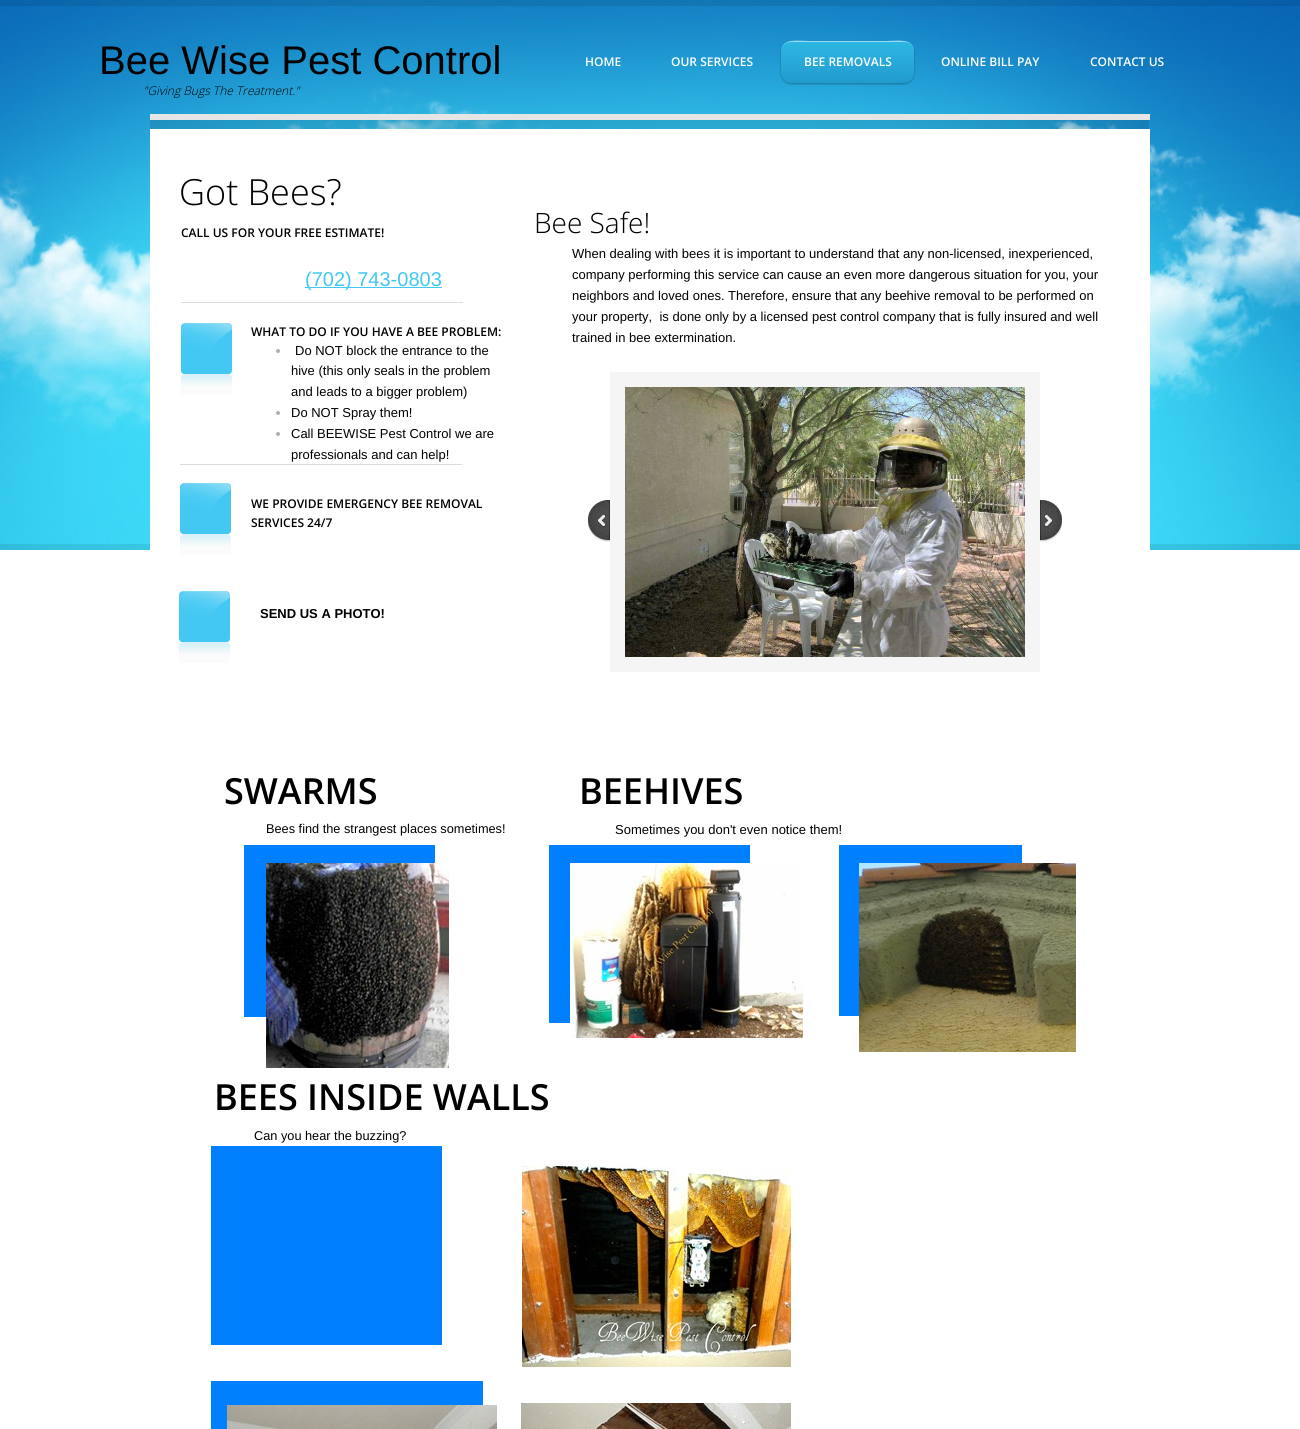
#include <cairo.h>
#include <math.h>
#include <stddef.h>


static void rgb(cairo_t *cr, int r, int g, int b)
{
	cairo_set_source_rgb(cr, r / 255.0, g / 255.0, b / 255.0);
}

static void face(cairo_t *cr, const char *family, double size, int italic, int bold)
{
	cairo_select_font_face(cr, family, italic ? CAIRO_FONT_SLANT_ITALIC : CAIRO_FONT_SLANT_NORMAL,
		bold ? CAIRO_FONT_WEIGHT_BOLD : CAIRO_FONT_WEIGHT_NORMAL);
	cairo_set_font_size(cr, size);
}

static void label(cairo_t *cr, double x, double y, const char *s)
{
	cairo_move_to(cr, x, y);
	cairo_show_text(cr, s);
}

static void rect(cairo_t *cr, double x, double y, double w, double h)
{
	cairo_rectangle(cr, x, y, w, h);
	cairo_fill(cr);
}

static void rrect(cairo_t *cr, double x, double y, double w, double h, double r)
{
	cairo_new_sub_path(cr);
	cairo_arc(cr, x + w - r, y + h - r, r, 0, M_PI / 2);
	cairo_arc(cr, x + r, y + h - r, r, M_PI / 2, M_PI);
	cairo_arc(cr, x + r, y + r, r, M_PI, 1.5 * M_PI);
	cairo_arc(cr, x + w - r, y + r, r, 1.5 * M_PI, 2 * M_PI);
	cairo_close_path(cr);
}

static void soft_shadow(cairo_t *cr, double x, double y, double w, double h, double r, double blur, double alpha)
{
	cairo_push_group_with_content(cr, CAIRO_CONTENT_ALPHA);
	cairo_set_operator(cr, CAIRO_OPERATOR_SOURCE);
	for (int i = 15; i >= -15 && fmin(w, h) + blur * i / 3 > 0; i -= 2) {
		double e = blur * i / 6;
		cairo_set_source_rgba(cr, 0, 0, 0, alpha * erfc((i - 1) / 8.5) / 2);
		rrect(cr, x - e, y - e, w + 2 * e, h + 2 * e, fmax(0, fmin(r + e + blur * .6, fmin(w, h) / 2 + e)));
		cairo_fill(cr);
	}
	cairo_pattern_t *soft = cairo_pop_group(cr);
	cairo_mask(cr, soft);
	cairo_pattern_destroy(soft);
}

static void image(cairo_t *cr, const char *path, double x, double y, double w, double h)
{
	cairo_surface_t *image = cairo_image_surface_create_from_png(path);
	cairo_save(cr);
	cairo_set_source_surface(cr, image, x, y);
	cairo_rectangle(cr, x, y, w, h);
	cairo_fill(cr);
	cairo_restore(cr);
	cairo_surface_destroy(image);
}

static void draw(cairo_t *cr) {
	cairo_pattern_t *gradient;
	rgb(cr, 255, 255, 255);
	cairo_paint(cr);
	image(cr, "image0.png", 0, 0, 1300, 550);
	face(cr, "Liberation Sans", 40, 0, 0);
	rgb(cr, 0, 0, 0);
	label(cr, 99, 74, "Bee Wise Pest Control");
	face(cr, "Open Sans SemiBold", 12, 0, 0);
	rgb(cr, 255, 255, 255);
	label(cr, 585, 66, "HOME");
	label(cr, 671, 66, "OUR SERVICES");
	rgb(cr, 0, 0, 0);
	soft_shadow(cr, 781, 42, 133, 42, 10, 1, 0.3);
	gradient = cairo_pattern_create_linear(848, 41, 848, 83);
	cairo_pattern_add_color_stop_rgba(gradient, 0, 0.176, 0.718, 0.89, 1);
	cairo_pattern_add_color_stop_rgba(gradient, 1, 0.133, 0.608, 0.812, 1);
	cairo_set_source(cr, gradient);
	cairo_pattern_destroy(gradient);
	rrect(cr, 781, 41, 133, 42, 10);
	cairo_fill(cr);
	cairo_set_source_rgba(cr, 1, 1, 1, 0.5);
	cairo_new_path(cr);
	cairo_move_to(cr, 791, 42);
	cairo_line_to(cr, 904, 42);
	cairo_curve_to(cr, 910, 42, 914, 46, 914, 52);
	cairo_curve_to(cr, 914, 37, 895, 41, 885, 41);
	cairo_line_to(cr, 810, 41);
	cairo_curve_to(cr, 800, 41, 781, 37, 781, 52);
	cairo_curve_to(cr, 781, 46, 785, 42, 791, 42);
	cairo_close_path(cr);
	cairo_fill(cr);
	rgb(cr, 255, 255, 255);
	label(cr, 804, 66, "BEE REMOVALS");
	label(cr, 941, 66, "ONLINE BILL PAY");
	label(cr, 1090, 66, "CONTACT US");
	face(cr, "Open Sans Light", 12, 1, 0);
	rgb(cr, 0, 0, 0);
	label(cr, 143, 95, "\"Giving Bugs The Treatment.\"");
	rgb(cr, 229, 229, 229);
	rect(cr, 150, 114, 1000, 6);
	cairo_set_source_rgba(cr, 0, 0, 0, 0.1);
	rect(cr, 150, 120, 999, 9);
	rgb(cr, 255, 255, 255);
	rect(cr, 150, 129, 1000, 421);
	face(cr, "Open Sans Light", 36, 0, 0);
	rgb(cr, 0, 0, 0);
	label(cr, 179, 205, "Got Bees?");
	face(cr, "Open Sans Light", 28, 0, 0);
	label(cr, 534, 233, "Bee Safe!");
	face(cr, "Open Sans SemiBold", 12, 0, 0);
	label(cr, 181, 237, "CALL US FOR YOUR FREE ESTIMATE!");
	rgb(cr, 66, 200, 243);
	rect(cr, 305, 287, 137, 1);
	face(cr, "Liberation Sans", 20, 0, 0);
	label(cr, 305, 286, "(702) 743-0803");
	face(cr, "Liberation Sans", 13, 0, 0);
	rgb(cr, 0, 0, 0);
	label(cr, 572, 258, "When dealing with bees it is important to understand that any non-licensed, inexperienced,");
	label(cr, 572, 279, "company performing this service can cause an even more dangerous situation for you, your");
	label(cr, 572, 300, "neighbors and loved ones. Therefore, ensure that any beehive removal to be performed on");
	label(cr, 572, 321, "your property,  is done only by a licensed pest control company that is fully insured and well");
	label(cr, 572, 342, "trained in bee extermination.");
	rgb(cr, 221, 221, 221);
	rect(cr, 181, 302, 282, 1);
	image(cr, "image1.png", 181, 323, 51, 72);
	face(cr, "Open Sans SemiBold", 12, 0, 0);
	rgb(cr, 0, 0, 0);
	label(cr, 251, 336, "WHAT TO DO IF YOU HAVE A BEE PROBLEM:");
	rgb(cr, 174, 174, 174);
	cairo_new_path(cr);
	cairo_arc(cr, 278, 351, 2, 0, 2 * M_PI);
	cairo_fill(cr);
	face(cr, "Liberation Sans", 13, 0, 0);
	rgb(cr, 0, 0, 0);
	label(cr, 295, 355, "Do NOT block the entrance to the");
	label(cr, 291, 375, "hive (this only seals in the problem");
	label(cr, 291, 396, "and leads to a bigger problem)");
	rgb(cr, 174, 174, 174);
	cairo_new_path(cr);
	cairo_arc(cr, 278, 413, 2, 0, 2 * M_PI);
	cairo_fill(cr);
	rgb(cr, 0, 0, 0);
	label(cr, 291, 417, "Do NOT Spray them!");
	rgb(cr, 174, 174, 174);
	cairo_new_path(cr);
	cairo_arc(cr, 278, 434, 2, 0, 2 * M_PI);
	cairo_fill(cr);
	rgb(cr, 0, 0, 0);
	label(cr, 291, 438, "Call BEEWISE Pest Control we are");
	label(cr, 291, 459, "professionals and can help!");
	image(cr, "image2.png", 588, 500, 22, 42);
	cairo_rectangle(cr, 617.5, 379.5, 415, 285);
	rgb(cr, 245, 245, 245);
	cairo_set_line_width(cr, 15);
	cairo_stroke(cr);
	image(cr, "image3.png", 625, 387, 400, 270);
	image(cr, "image4.png", 1040, 500, 22, 42);
	rgb(cr, 221, 221, 221);
	rect(cr, 180, 464, 282, 1);
	image(cr, "image1.png", 180, 483, 51, 72);
	face(cr, "Open Sans SemiBold", 12, 0, 0);
	rgb(cr, 0, 0, 0);
	label(cr, 251, 508, "WE PROVIDE EMERGENCY BEE REMOVAL");
	label(cr, 251, 527, "SERVICES 24/7");
	image(cr, "image5.png", 179, 591, 51, 72);
	face(cr, "Liberation Sans", 13, 0, 1);
	label(cr, 260, 618, "SEND US A PHOTO!");
	face(cr, "Open Sans SemiBold", 36, 0, 0);
	label(cr, 224, 804, "SWARMS");
	label(cr, 579, 804, "BEEHIVES");
	face(cr, "Liberation Sans", 13, 0, 0);
	label(cr, 615, 834, "Sometimes you don't even notice them!");
	face(cr, "Liberation Sans", 12.75, 0, 0);
	label(cr, 266, 833, "Bees find the strangest places sometimes!");
	rgb(cr, 0, 127, 255);
	rect(cr, 244, 845, 191, 172);
	rect(cr, 549, 845, 201, 178);
	rect(cr, 839, 845, 183, 171);
	image(cr, "image6.png", 266, 863, 183, 205);
	image(cr, "image7.png", 570, 863, 233, 175);
	image(cr, "image8.png", 859, 863, 217, 189);
	face(cr, "Open Sans SemiBold", 36, 0, 0);
	rgb(cr, 0, 0, 0);
	label(cr, 214, 1110, "BEES INSIDE WALLS");
	face(cr, "Liberation Sans", 12.75, 0, 0);
	label(cr, 254, 1140, "Can you hear the buzzing?");
	rgb(cr, 0, 127, 255);
	rect(cr, 211, 1146, 231, 199);
	image(cr, "image9.png", 522, 1166, 269, 201);
	rect(cr, 211, 1381, 272, 48);
	image(cr, "image10.png", 521, 1403, 270, 26);
	image(cr, "image11.png", 227, 1405, 270, 24);
}

int main(void) {
	cairo_surface_t *surface = cairo_image_surface_create(CAIRO_FORMAT_RGB24, 1300, 1429);
	cairo_t *cr = cairo_create(surface);
	cairo_font_options_t *options = cairo_font_options_create();
	cairo_font_options_set_hint_metrics(options, CAIRO_HINT_METRICS_OFF);
	cairo_font_options_set_hint_style(options, CAIRO_HINT_STYLE_NONE);
	cairo_set_font_options(cr, options);
	cairo_set_miter_limit(cr, 4);
	draw(cr);
	cairo_surface_write_to_png(surface, "render.png");
	cairo_font_options_destroy(options);
	cairo_destroy(cr);
	cairo_surface_destroy(surface);
	return 0;
}
